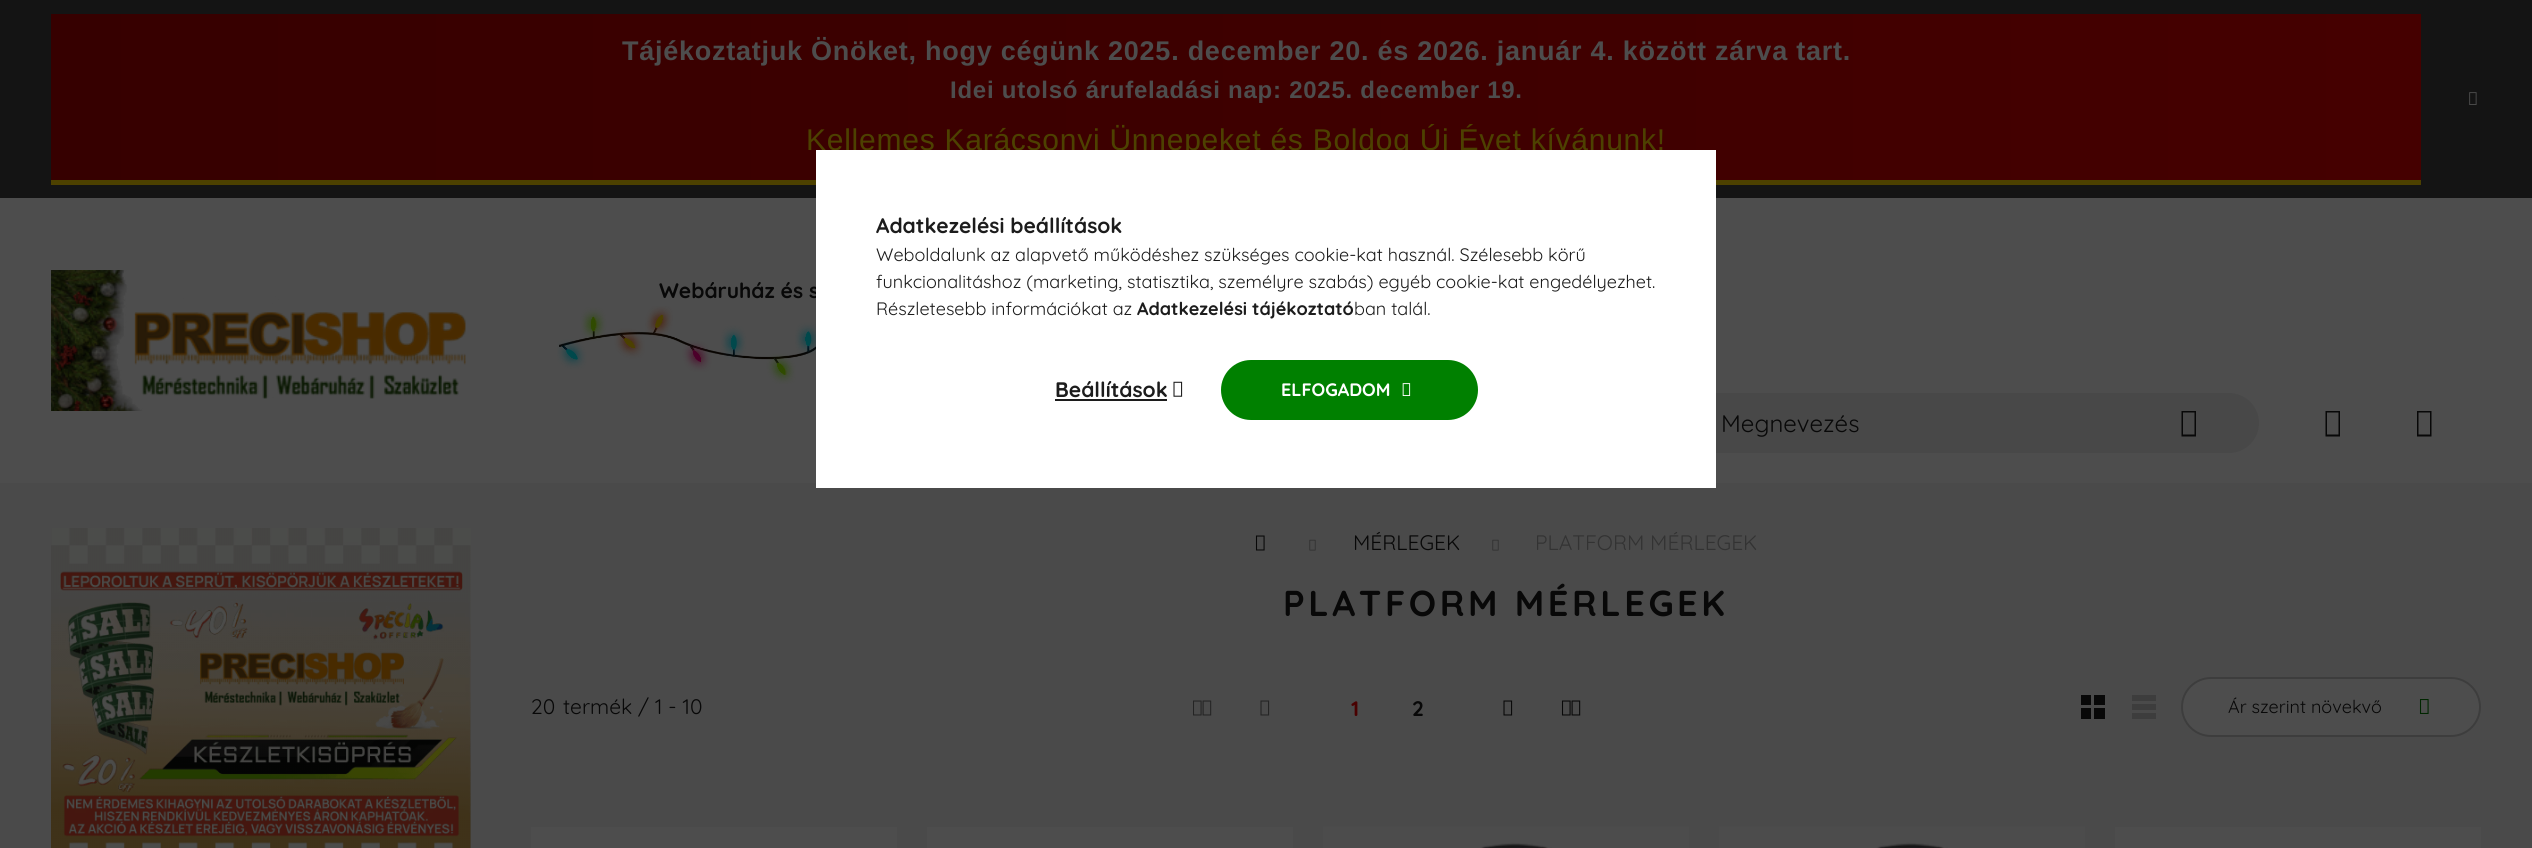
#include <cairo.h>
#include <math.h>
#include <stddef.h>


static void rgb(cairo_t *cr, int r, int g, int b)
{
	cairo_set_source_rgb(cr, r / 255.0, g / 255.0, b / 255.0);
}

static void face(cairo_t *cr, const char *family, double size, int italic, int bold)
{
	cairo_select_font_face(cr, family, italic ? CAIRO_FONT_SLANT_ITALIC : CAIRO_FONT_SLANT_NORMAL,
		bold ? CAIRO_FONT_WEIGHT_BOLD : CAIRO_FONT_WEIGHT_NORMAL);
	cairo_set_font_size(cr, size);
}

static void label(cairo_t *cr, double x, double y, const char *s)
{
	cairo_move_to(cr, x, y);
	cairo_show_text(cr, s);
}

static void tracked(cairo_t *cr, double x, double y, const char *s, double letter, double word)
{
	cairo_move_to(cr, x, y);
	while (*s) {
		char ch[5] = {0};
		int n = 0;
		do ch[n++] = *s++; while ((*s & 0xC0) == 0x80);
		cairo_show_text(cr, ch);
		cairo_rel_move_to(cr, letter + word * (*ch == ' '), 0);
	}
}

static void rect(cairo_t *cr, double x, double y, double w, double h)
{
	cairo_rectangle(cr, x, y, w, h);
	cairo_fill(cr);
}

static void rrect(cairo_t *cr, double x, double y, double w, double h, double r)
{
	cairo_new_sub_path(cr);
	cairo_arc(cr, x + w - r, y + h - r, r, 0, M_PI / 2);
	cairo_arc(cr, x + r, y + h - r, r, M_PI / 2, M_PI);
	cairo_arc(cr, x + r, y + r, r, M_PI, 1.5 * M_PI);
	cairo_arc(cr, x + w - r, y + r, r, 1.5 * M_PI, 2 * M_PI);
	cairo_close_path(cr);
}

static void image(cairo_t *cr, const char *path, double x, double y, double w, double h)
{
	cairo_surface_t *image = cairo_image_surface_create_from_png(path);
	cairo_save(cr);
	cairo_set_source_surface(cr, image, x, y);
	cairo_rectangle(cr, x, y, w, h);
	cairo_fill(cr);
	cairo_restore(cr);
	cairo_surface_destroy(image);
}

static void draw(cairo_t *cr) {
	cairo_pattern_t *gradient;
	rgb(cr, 74, 74, 74);
	cairo_paint(cr);
	rgb(cr, 20, 20, 20);
	rect(cr, 0, 0, 2532, 198);
	gradient = cairo_pattern_create_linear(51, 97, 2421, 97);
	cairo_pattern_add_color_stop_rgba(gradient, 0, 0.212, 0, 0, 1);
	cairo_pattern_add_color_stop_rgba(gradient, 1, 0.271, 0, 0, 1);
	cairo_set_source(cr, gradient);
	cairo_pattern_destroy(gradient);
	rect(cr, 51, 14, 2370, 166);
	rgb(cr, 77, 65, 0);
	rect(cr, 51, 180, 2370, 5);
	face(cr, "Liberation Sans", 27, 0, 1);
	rgb(cr, 77, 77, 77);
	tracked(cr, 622, 60, "Tájékoztatjuk Önöket, hogy cégünk 2025. december 20. és 2026. január 4. között zárva tart.", 0.75, 0);
	face(cr, "Liberation Sans", 24, 0, 1);
	tracked(cr, 950, 98, "Idei utolsó árufeladási nap: 2025. december 19.", 0.75, 0);
	face(cr, "Liberation Sans", 30, 0, 0);
	rgb(cr, 77, 65, 0);
	tracked(cr, 806, 150, "Kellemes Karácsonyi Ünnepeket és Boldog Új Évet kívánunk!", 0.75, 0);
	image(cr, "image0.png", 2469, 92, 8, 13);
	rgb(cr, 77, 77, 77);
	rect(cr, 0, 198, 2532, 285);
	image(cr, "image1.png", 51, 270, 415, 141);
	face(cr, "Quicksand", 21, 0, 1);
	rgb(cr, 8, 8, 8);
	label(cr, 659, 298, "Webáruház és s");
	image(cr, "image2.png", 557, 306, 259, 78);
	rgb(cr, 72, 72, 72);
	rrect(cr, 1359, 393, 900, 60, 30);
	cairo_fill(cr);
	face(cr, "Quicksand", 24, 0, 0);
	rgb(cr, 8, 8, 8);
	label(cr, 1721, 432, "Megnevezés");
	cairo_new_path(cr);
	cairo_move_to(cr, 2181.5, 436.5);
	cairo_line_to(cr, 2181.5, 411);
	cairo_line_to(cr, 2196, 411);
	cairo_line_to(cr, 2196, 436.5);
	cairo_close_path(cr);
	cairo_move_to(cr, 2183, 434.5);
	cairo_line_to(cr, 2194.5, 434.5);
	cairo_line_to(cr, 2194.5, 412.5);
	cairo_line_to(cr, 2183, 412.5);
	cairo_close_path(cr);
	cairo_fill(cr);
	cairo_new_path(cr);
	cairo_move_to(cr, 2325.5, 436.5);
	cairo_line_to(cr, 2325.5, 411);
	cairo_line_to(cr, 2340, 411);
	cairo_line_to(cr, 2340, 436.5);
	cairo_close_path(cr);
	cairo_move_to(cr, 2327, 434.5);
	cairo_line_to(cr, 2338.5, 434.5);
	cairo_line_to(cr, 2338.5, 412.5);
	cairo_line_to(cr, 2327, 412.5);
	cairo_close_path(cr);
	cairo_fill(cr);
	cairo_new_path(cr);
	cairo_move_to(cr, 2417, 436.5);
	cairo_line_to(cr, 2417, 411);
	cairo_line_to(cr, 2431.5, 411);
	cairo_line_to(cr, 2431.5, 436.5);
	cairo_close_path(cr);
	cairo_move_to(cr, 2418.5, 434.5);
	cairo_line_to(cr, 2430, 434.5);
	cairo_line_to(cr, 2430, 412.5);
	cairo_line_to(cr, 2418.5, 412.5);
	cairo_close_path(cr);
	cairo_fill(cr);
	image(cr, "image3.png", 51, 528, 420, 320);
	image(cr, "image4.png", 1255, 535, 10, 16);
	image(cr, "image5.png", 1309, 539, 7, 12);
	face(cr, "Quicksand", 21, 0, 0);
	label(cr, 1353, 550, "MÉRLEGEK");
	image(cr, "image5.png", 1492, 539, 7, 12);
	rgb(cr, 51, 51, 51);
	label(cr, 1535, 550, "PLATFORM MÉRLEGEK");
	face(cr, "Quicksand", 36, 0, 1);
	rgb(cr, 8, 8, 8);
	tracked(cr, 1283, 616, "PLATFORM MÉRLEGEK", 3.6, 0);
	face(cr, "Quicksand", 21, 0, 0);
	label(cr, 531, 714, "20");
	label(cr, 563, 714, "termék / 1 - 10");
	image(cr, "image6.png", 1193, 700, 19, 16);
	image(cr, "image7.png", 1260, 700, 10, 16);
	face(cr, "Quicksand", 21, 0, 1);
	rgb(cr, 73, 1, 1);
	label(cr, 1351, 716, "1");
	rgb(cr, 8, 8, 8);
	label(cr, 1412, 716, "2");
	image(cr, "image8.png", 1503, 700, 10, 16);
	image(cr, "image9.png", 1561, 700, 20, 16);
	rect(cr, 2081, 695, 10, 10);
	rect(cr, 2094, 695, 11, 10);
	rect(cr, 2081, 708, 10, 11);
	rect(cr, 2094, 708, 11, 11);
	rgb(cr, 61, 61, 61);
	rect(cr, 2132, 695, 24, 6);
	rect(cr, 2132, 704, 24, 6);
	rect(cr, 2132, 713, 24, 6);
	rgb(cr, 77, 77, 77);
	rrect(cr, 2182, 678, 298, 58, 29);
	cairo_fill_preserve(cr);
	rgb(cr, 61, 61, 61);
	cairo_stroke(cr);
	face(cr, "Quicksand", 18, 0, 0);
	rgb(cr, 8, 8, 8);
	label(cr, 2228, 713, "Ár szerint növekvő");
	image(cr, "image10.png", 2419, 699, 10, 15);
	rgb(cr, 77, 77, 77);
	rect(cr, 531, 827, 366, 21);
	rect(cr, 927, 827, 366, 21);
	image(cr, "image11.png", 1323, 826, 366, 22);
	image(cr, "image11.png", 1719, 826, 366, 22);
	rect(cr, 2115, 827, 366, 21);
	rgb(cr, 255, 255, 255);
	rect(cr, 816, 150, 900, 338);
	face(cr, "Quicksand", 21, 0, 1);
	rgb(cr, 28, 28, 28);
	label(cr, 876, 233, "Adatkezelési beállítások");
	face(cr, "Quicksand", 18, 0, 0);
	label(cr, 876, 261, "Weboldalunk az alapvető működéshez szükséges cookie-kat használ. Szélesebb körű");
	label(cr, 876, 288, "funkcionalitáshoz (marketing, statisztika, személyre szabás) egyéb cookie-kat engedélyezhet.");
	label(cr, 876, 315, "Részletesebb információkat az");
	face(cr, "Quicksand", 18, 0, 1);
	label(cr, 1137, 315, "Adatkezelési tájékoztató");
	face(cr, "Quicksand", 18, 0, 0);
	label(cr, 1354, 315, "ban talál.");
	face(cr, "Quicksand", 21, 0, 1);
	label(cr, 1055, 397, "Beállítások");
	rect(cr, 1055, 399, 112, 2);
	image(cr, "image12.png", 1173, 381, 10, 16);
	rgb(cr, 0, 128, 0);
	rrect(cr, 1221, 360, 257, 60, 30);
	cairo_fill(cr);
	face(cr, "Quicksand", 18, 0, 1);
	rgb(cr, 255, 255, 255);
	label(cr, 1281, 396, "ELFOGADOM");
	image(cr, "image13.png", 1402, 383, 9, 13);
}

int main(void) {
	cairo_surface_t *surface = cairo_image_surface_create(CAIRO_FORMAT_RGB24, 2532, 848);
	cairo_t *cr = cairo_create(surface);
	cairo_font_options_t *options = cairo_font_options_create();
	cairo_font_options_set_hint_metrics(options, CAIRO_HINT_METRICS_OFF);
	cairo_font_options_set_hint_style(options, CAIRO_HINT_STYLE_NONE);
	cairo_set_font_options(cr, options);
	cairo_set_miter_limit(cr, 4);
	draw(cr);
	cairo_surface_write_to_png(surface, "render.png");
	cairo_font_options_destroy(options);
	cairo_destroy(cr);
	cairo_surface_destroy(surface);
	return 0;
}
